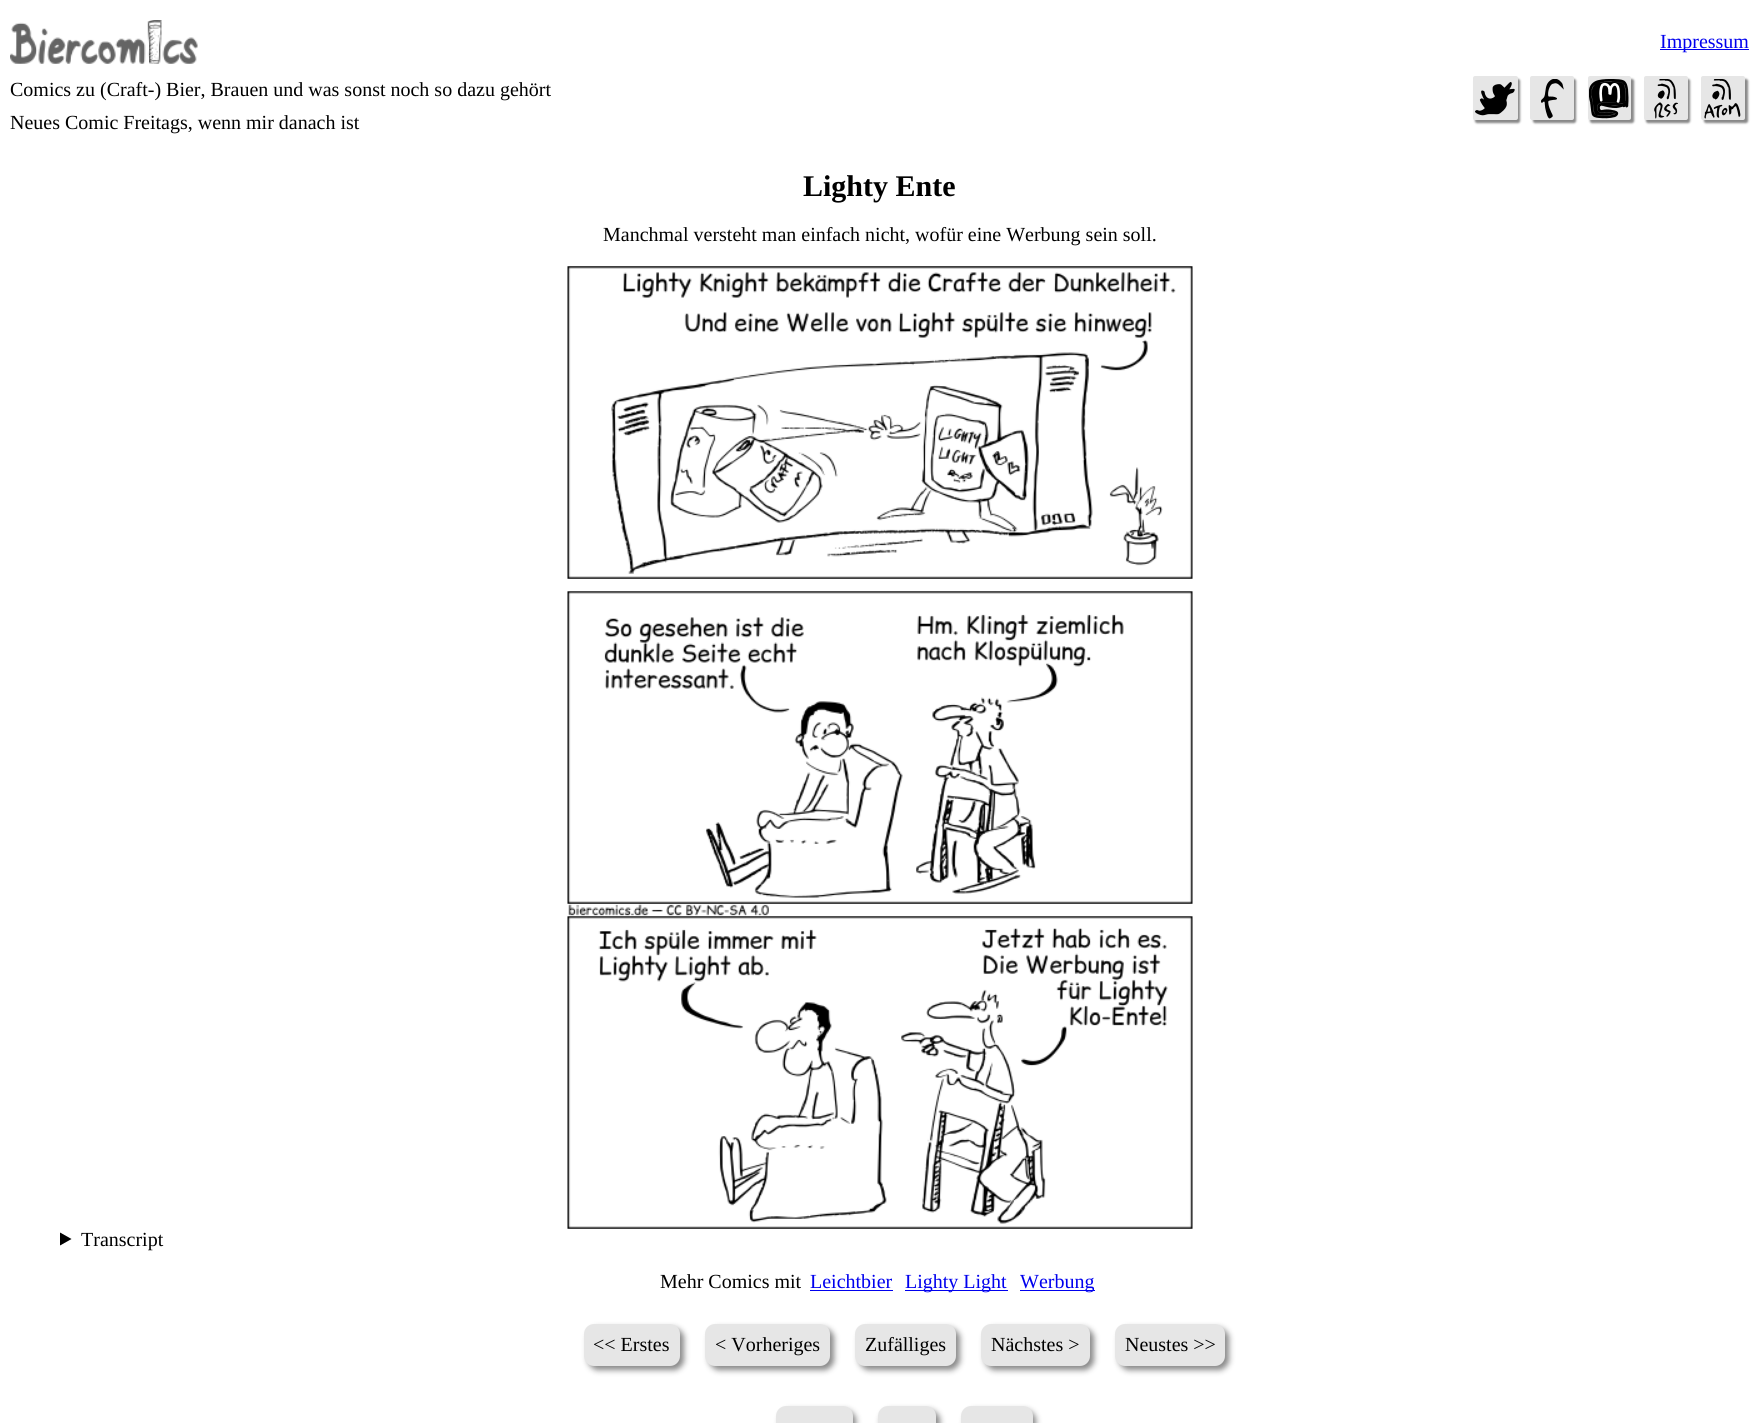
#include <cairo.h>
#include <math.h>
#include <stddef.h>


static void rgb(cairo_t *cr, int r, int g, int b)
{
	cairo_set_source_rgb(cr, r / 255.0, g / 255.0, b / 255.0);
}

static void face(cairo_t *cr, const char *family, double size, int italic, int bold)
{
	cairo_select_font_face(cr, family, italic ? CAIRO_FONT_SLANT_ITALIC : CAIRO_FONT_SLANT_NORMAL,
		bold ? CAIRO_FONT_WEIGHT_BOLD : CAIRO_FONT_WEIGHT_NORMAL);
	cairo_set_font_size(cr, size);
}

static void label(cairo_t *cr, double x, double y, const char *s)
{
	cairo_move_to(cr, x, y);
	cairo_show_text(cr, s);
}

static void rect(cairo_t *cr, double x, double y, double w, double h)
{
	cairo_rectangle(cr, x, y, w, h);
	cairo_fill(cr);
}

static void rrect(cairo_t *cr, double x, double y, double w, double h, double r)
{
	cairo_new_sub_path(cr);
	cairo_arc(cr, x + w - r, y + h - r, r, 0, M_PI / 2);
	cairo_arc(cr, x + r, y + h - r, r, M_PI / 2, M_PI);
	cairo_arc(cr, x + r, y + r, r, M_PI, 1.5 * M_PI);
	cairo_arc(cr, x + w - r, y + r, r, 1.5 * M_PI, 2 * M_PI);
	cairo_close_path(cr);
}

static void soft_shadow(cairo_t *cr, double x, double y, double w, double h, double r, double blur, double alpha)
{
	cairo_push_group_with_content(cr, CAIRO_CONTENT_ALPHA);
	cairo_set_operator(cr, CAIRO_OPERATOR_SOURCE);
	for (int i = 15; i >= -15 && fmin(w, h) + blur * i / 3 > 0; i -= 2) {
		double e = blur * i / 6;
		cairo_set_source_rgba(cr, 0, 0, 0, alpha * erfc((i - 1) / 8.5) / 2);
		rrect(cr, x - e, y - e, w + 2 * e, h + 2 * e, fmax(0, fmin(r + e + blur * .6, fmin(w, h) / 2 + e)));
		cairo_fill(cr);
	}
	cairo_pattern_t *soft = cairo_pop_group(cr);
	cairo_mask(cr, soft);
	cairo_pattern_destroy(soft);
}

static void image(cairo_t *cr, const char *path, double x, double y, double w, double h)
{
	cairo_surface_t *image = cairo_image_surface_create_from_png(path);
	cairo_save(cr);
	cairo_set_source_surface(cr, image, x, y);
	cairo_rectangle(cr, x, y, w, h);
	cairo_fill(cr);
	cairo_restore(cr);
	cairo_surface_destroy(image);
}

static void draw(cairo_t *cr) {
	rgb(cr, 255, 255, 255);
	cairo_paint(cr);
	rgb(cr, 0, 0, 238);
	rect(cr, 1660, 49, 89, 1);
	face(cr, "Liberation Serif", 20, 0, 0);
	label(cr, 1660, 48, "Impressum");
	rgb(cr, 136, 136, 136);
	soft_shadow(cr, 1475, 79, 45, 44, 2, 1, 1);
	rgb(cr, 230, 230, 230);
	rrect(cr, 1473, 76, 45, 44, 2);
	cairo_fill(cr);
	image(cr, "image0.png", 1475, 82, 40, 34);
	rgb(cr, 136, 136, 136);
	soft_shadow(cr, 1533, 79, 43, 44, 2, 1, 1);
	rgb(cr, 230, 230, 230);
	rrect(cr, 1530, 76, 44, 44, 2);
	cairo_fill(cr);
	image(cr, "image1.png", 1541, 79, 23, 40);
	rgb(cr, 136, 136, 136);
	soft_shadow(cr, 1590, 79, 44, 44, 2, 1, 1);
	rgb(cr, 230, 230, 230);
	rrect(cr, 1588, 76, 43, 44, 2);
	cairo_fill(cr);
	image(cr, "image2.png", 1589, 79, 40, 40);
	rgb(cr, 136, 136, 136);
	soft_shadow(cr, 1646, 79, 44, 44, 2, 1, 1);
	rgb(cr, 230, 230, 230);
	rrect(cr, 1644, 76, 44, 44, 2);
	cairo_fill(cr);
	image(cr, "image3.png", 1654, 79, 24, 40);
	rgb(cr, 136, 136, 136);
	soft_shadow(cr, 1704, 79, 44, 44, 2, 1, 1);
	rgb(cr, 230, 230, 230);
	rrect(cr, 1701, 76, 44, 44, 2);
	cairo_fill(cr);
	image(cr, "image4.png", 1704, 79, 37, 40);
	image(cr, "image5.png", 10, 20, 188, 44);
	rgb(cr, 0, 0, 0);
	label(cr, 10, 96, "Comics zu (Craft-) Bier, Brauen und was sonst noch so dazu gehört");
	label(cr, 10, 129, "Neues Comic Freitags, wenn mir danach ist");
	face(cr, "Liberation Serif", 30, 0, 1);
	label(cr, 803, 196, "Lighty Ente");
	face(cr, "Liberation Serif", 20, 0, 0);
	label(cr, 603, 241, "Manchmal versteht man einfach nicht, wofür eine Werbung sein soll.");
	image(cr, "image6.png", 567, 266, 626, 963);
	cairo_new_path(cr);
	cairo_move_to(cr, 60, 1232.5);
	cairo_line_to(cr, 71.5, 1239);
	cairo_line_to(cr, 60, 1245.5);
	cairo_close_path(cr);
	cairo_fill(cr);
	label(cr, 81, 1246, "Transcript");
	label(cr, 660, 1288, "Mehr Comics mit");
	rgb(cr, 0, 0, 238);
	label(cr, 810, 1288, "Leichtbier");
	rect(cr, 810, 1290, 83, 1);
	rect(cr, 905, 1290, 103, 1);
	label(cr, 905, 1288, "Lighty Light");
	rect(cr, 1020, 1290, 75, 1);
	label(cr, 1020, 1288, "Werbung");
	rgb(cr, 136, 136, 136);
	soft_shadow(cr, 588, 1328, 96, 42, 10, 3, 1);
	rgb(cr, 230, 230, 230);
	rrect(cr, 584, 1324, 96, 42, 10);
	cairo_fill(cr);
	rgb(cr, 0, 0, 0);
	label(cr, 593, 1351, "<< Erstes");
	rgb(cr, 136, 136, 136);
	soft_shadow(cr, 709, 1328, 125, 42, 10, 3, 1);
	rgb(cr, 230, 230, 230);
	rrect(cr, 705, 1324, 125, 42, 10);
	cairo_fill(cr);
	rgb(cr, 0, 0, 0);
	label(cr, 715, 1351, "< Vorheriges");
	rgb(cr, 136, 136, 136);
	soft_shadow(cr, 859, 1328, 101, 42, 10, 3, 1);
	rgb(cr, 230, 230, 230);
	rrect(cr, 855, 1324, 101, 42, 10);
	cairo_fill(cr);
	rgb(cr, 0, 0, 0);
	label(cr, 865, 1351, "Zufälliges");
	rgb(cr, 136, 136, 136);
	soft_shadow(cr, 985, 1328, 109, 42, 10, 3, 1);
	rgb(cr, 230, 230, 230);
	rrect(cr, 981, 1324, 109, 42, 10);
	cairo_fill(cr);
	rgb(cr, 0, 0, 0);
	label(cr, 991, 1351, "Nächstes >");
	rgb(cr, 136, 136, 136);
	soft_shadow(cr, 1119, 1328, 110, 42, 10, 3, 1);
	rgb(cr, 230, 230, 230);
	rrect(cr, 1115, 1324, 110, 42, 10);
	cairo_fill(cr);
	rgb(cr, 0, 0, 0);
	label(cr, 1125, 1351, "Neustes >>");
	rgb(cr, 136, 136, 136);
	soft_shadow(cr, 780, 1410, 76, 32, 10, 3, 1);
	rgb(cr, 230, 230, 230);
	rrect(cr, 776, 1406, 77, 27, 10);
	cairo_fill(cr);
	rgb(cr, 136, 136, 136);
	soft_shadow(cr, 881, 1410, 59, 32, 10, 3, 1);
	rgb(cr, 230, 230, 230);
	rrect(cr, 878, 1406, 58, 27, 10);
	cairo_fill(cr);
	rgb(cr, 136, 136, 136);
	soft_shadow(cr, 965, 1410, 71, 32, 10, 3, 1);
	rgb(cr, 230, 230, 230);
	rrect(cr, 961, 1406, 72, 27, 10);
	cairo_fill(cr);
}

int main(void) {
	cairo_surface_t *surface = cairo_image_surface_create(CAIRO_FORMAT_RGB24, 1758, 1423);
	cairo_t *cr = cairo_create(surface);
	cairo_font_options_t *options = cairo_font_options_create();
	cairo_font_options_set_hint_metrics(options, CAIRO_HINT_METRICS_OFF);
	cairo_font_options_set_hint_style(options, CAIRO_HINT_STYLE_NONE);
	cairo_set_font_options(cr, options);
	cairo_set_miter_limit(cr, 4);
	draw(cr);
	cairo_surface_write_to_png(surface, "render.png");
	cairo_font_options_destroy(options);
	cairo_destroy(cr);
	cairo_surface_destroy(surface);
	return 0;
}
